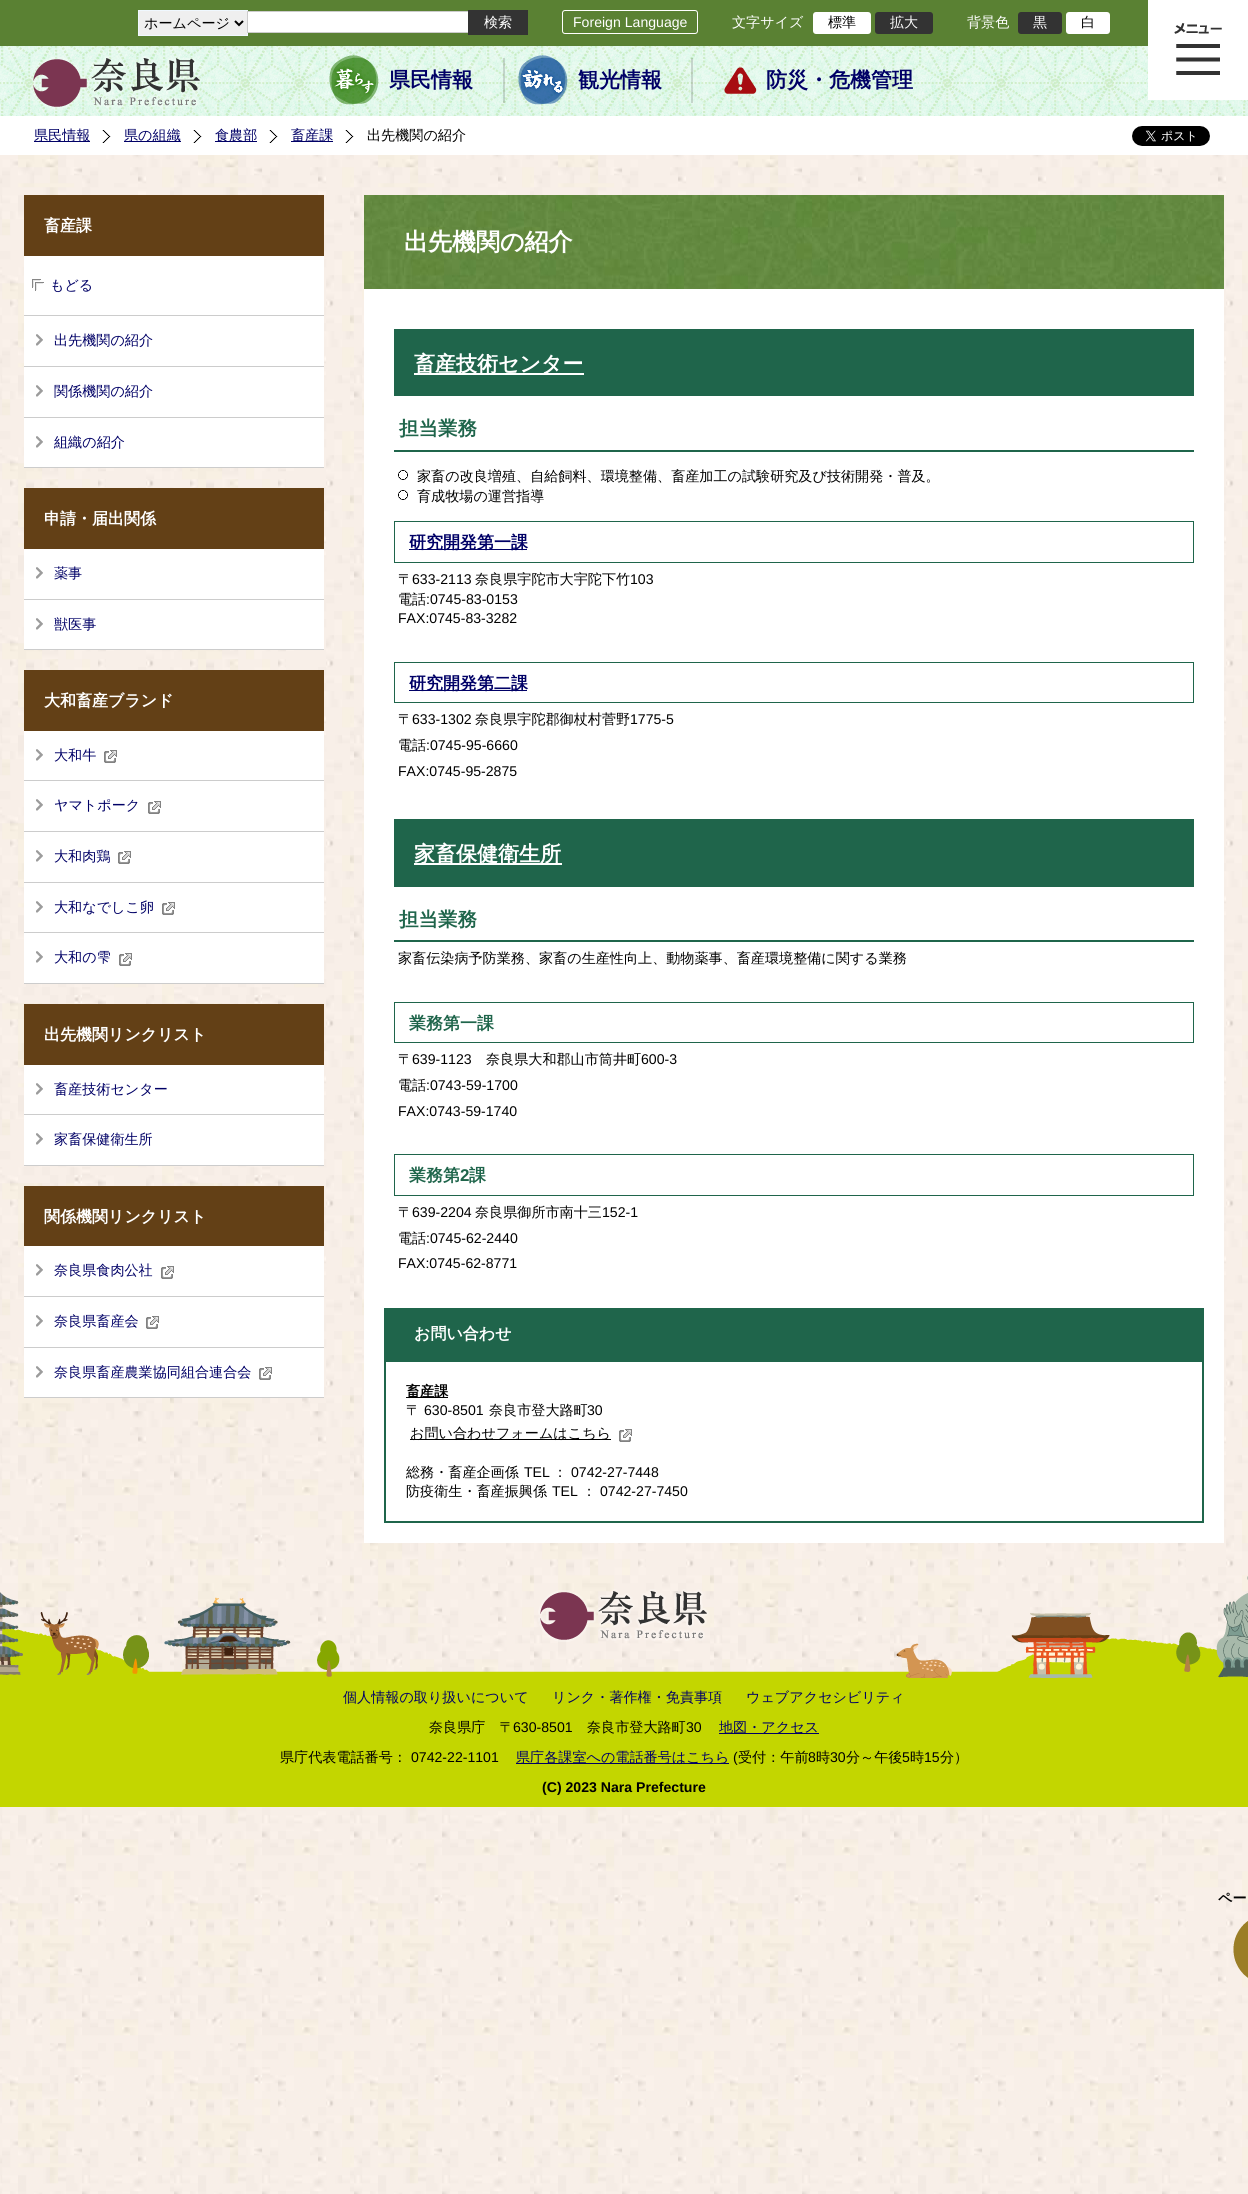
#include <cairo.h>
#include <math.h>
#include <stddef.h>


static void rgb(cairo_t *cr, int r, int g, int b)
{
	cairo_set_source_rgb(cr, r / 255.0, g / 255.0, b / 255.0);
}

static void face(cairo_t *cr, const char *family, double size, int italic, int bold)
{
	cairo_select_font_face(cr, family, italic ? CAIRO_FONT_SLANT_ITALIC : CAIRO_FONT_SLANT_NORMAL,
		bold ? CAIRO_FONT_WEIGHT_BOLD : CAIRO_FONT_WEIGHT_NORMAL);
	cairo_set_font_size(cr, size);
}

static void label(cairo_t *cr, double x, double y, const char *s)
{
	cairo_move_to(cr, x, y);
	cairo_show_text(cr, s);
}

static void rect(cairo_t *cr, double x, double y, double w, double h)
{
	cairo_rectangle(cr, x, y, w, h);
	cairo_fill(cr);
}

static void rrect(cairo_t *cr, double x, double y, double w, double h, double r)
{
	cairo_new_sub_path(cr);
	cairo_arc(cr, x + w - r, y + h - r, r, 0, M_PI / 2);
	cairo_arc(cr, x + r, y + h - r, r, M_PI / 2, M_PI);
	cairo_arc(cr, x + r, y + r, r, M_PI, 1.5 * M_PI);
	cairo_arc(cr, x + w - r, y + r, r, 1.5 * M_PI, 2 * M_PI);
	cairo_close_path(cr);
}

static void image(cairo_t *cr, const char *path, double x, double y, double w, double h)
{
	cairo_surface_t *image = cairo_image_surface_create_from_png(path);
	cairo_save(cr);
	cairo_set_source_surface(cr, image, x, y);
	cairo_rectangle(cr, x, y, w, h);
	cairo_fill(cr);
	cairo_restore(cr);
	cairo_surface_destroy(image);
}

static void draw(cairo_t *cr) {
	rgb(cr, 255, 255, 255);
	cairo_paint(cr);
	image(cr, "image0.png", 0, 155, 1248, 2039);
	rgb(cr, 90, 129, 51);
	rect(cr, 0, 0, 1148, 46);
	rgb(cr, 239, 239, 239);
	cairo_rectangle(cr, 138.5, 10.5, 109, 25);
	cairo_fill_preserve(cr);
	rgb(cr, 240, 248, 255);
	cairo_set_line_width(cr, 1);
	cairo_stroke(cr);
	cairo_new_path(cr);
	cairo_move_to(cr, 235, 21);
	cairo_line_to(cr, 239, 25);
	cairo_line_to(cr, 243, 21);
	rgb(cr, 0, 0, 0);
	cairo_set_line_width(cr, 2);
	cairo_stroke(cr);
	face(cr, "WenQuanYi Zen Hei Medium", 14.1, 0, 0);
	label(cr, 144, 28, "ホームページ");
	rgb(cr, 255, 255, 255);
	cairo_rectangle(cr, 247.5, 11.5, 221, 21);
	cairo_fill_preserve(cr);
	rgb(cr, 204, 204, 204);
	cairo_set_line_width(cr, 1);
	cairo_stroke(cr);
	rgb(cr, 51, 51, 51);
	rect(cr, 468, 10, 60, 25);
	rgb(cr, 255, 255, 255);
	label(cr, 484, 27, "検索");
	rrect(cr, 562.5, 10.5, 135, 23, 2.5);
	cairo_stroke(cr);
	face(cr, "Liberation Sans", 14.1, 0, 0);
	label(cr, 573, 27, "Foreign Language");
	face(cr, "WenQuanYi Zen Hei Medium", 14.1, 0, 0);
	label(cr, 732, 27, "文字サイズ");
	rrect(cr, 813, 12, 58, 22, 3);
	cairo_fill(cr);
	rgb(cr, 0, 0, 0);
	label(cr, 828, 27, "標準");
	rgb(cr, 51, 51, 51);
	rrect(cr, 875, 12, 58, 22, 3);
	cairo_fill(cr);
	rgb(cr, 255, 255, 255);
	label(cr, 890, 27, "拡大");
	label(cr, 967, 27, "背景色");
	rgb(cr, 51, 51, 51);
	rrect(cr, 1018, 12, 44, 22, 3);
	cairo_fill(cr);
	rgb(cr, 255, 255, 255);
	label(cr, 1033, 27, "黒");
	rrect(cr, 1066, 12, 44, 22, 3);
	cairo_fill(cr);
	rgb(cr, 0, 0, 0);
	label(cr, 1081, 27, "白");
	image(cr, "image2.png", 0, 46, 1248, 70);
	image(cr, "image1.png", 31, 56, 171, 53);
	image(cr, "image3.png", 329, 55, 50, 50);
	face(cr, "WenQuanYi Zen Hei", 21, 0, 1);
	rgb(cr, 0, 0, 102);
	label(cr, 389, 87, "県民情報");
	cairo_set_source_rgba(cr, 0.408, 0.408, 0.408, 0.25);
	rect(cr, 503, 58, 2, 45);
	image(cr, "image4.png", 518, 55, 50, 50);
	rgb(cr, 0, 0, 102);
	label(cr, 578, 87, "観光情報");
	cairo_set_source_rgba(cr, 0.408, 0.408, 0.408, 0.25);
	rect(cr, 691, 58, 2, 45);
	image(cr, "image5.png", 724, 67, 33, 27);
	rgb(cr, 0, 0, 102);
	label(cr, 766, 87, "防災・危機管理");
	image(cr, "image6.png", 1148, 0, 100, 100);
	rect(cr, 34, 141, 56, 1);
	face(cr, "WenQuanYi Zen Hei Medium", 14.1, 0, 0);
	label(cr, 34, 140, "県民情報");
	image(cr, "image7.png", 102, 130, 9, 13);
	rect(cr, 124, 141, 57, 1);
	label(cr, 124, 140, "県の組織");
	image(cr, "image7.png", 193, 130, 9, 13);
	rect(cr, 215, 141, 42, 1);
	label(cr, 215, 140, "食農部");
	image(cr, "image7.png", 269, 130, 9, 13);
	rect(cr, 291, 141, 42, 1);
	label(cr, 291, 140, "畜産課");
	image(cr, "image7.png", 345, 130, 9, 13);
	rgb(cr, 0, 0, 0);
	label(cr, 367, 140, "出先機関の紹介");
	image(cr, "image8.png", 1132, 126, 78, 20);
	rgb(cr, 255, 255, 255);
	rect(cr, 24, 256, 300, 211);
	rgb(cr, 99, 64, 22);
	rect(cr, 24, 195, 300, 61);
	face(cr, "WenQuanYi Zen Hei", 16, 0, 1);
	rgb(cr, 255, 255, 255);
	label(cr, 44, 231, "畜産課");
	rgb(cr, 204, 204, 204);
	rect(cr, 24, 315, 300, 1);
	image(cr, "image9.png", 32, 279, 12, 12);
	face(cr, "WenQuanYi Zen Hei Medium", 14.1, 0, 0);
	rgb(cr, 0, 0, 102);
	label(cr, 50, 290, "もどる");
	rgb(cr, 204, 204, 204);
	rect(cr, 24, 366, 300, 1);
	image(cr, "image10.png", 36, 334, 7, 12);
	rgb(cr, 0, 0, 102);
	label(cr, 54, 345, "出先機関の紹介");
	rgb(cr, 204, 204, 204);
	rect(cr, 24, 417, 300, 1);
	image(cr, "image10.png", 36, 385, 7, 12);
	rgb(cr, 0, 0, 102);
	label(cr, 54, 396, "関係機関の紹介");
	rgb(cr, 204, 204, 204);
	rect(cr, 24, 467, 300, 1);
	image(cr, "image10.png", 36, 436, 7, 12);
	rgb(cr, 0, 0, 102);
	label(cr, 54, 447, "組織の紹介");
	rgb(cr, 255, 255, 255);
	rect(cr, 24, 549, 300, 100);
	rgb(cr, 99, 64, 22);
	rect(cr, 24, 488, 300, 61);
	face(cr, "WenQuanYi Zen Hei", 16, 0, 1);
	rgb(cr, 255, 255, 255);
	label(cr, 44, 524, "申請・届出関係");
	rgb(cr, 204, 204, 204);
	rect(cr, 24, 599, 300, 1);
	image(cr, "image10.png", 36, 567, 7, 12);
	face(cr, "WenQuanYi Zen Hei Medium", 14.1, 0, 0);
	rgb(cr, 0, 0, 102);
	label(cr, 54, 578, "薬事");
	rgb(cr, 204, 204, 204);
	rect(cr, 24, 649, 300, 1);
	image(cr, "image10.png", 36, 618, 7, 12);
	rgb(cr, 0, 0, 102);
	label(cr, 54, 629, "獣医事");
	rgb(cr, 255, 255, 255);
	rect(cr, 24, 731, 300, 252);
	rgb(cr, 99, 64, 22);
	rect(cr, 24, 670, 300, 61);
	face(cr, "WenQuanYi Zen Hei", 16, 0, 1);
	rgb(cr, 255, 255, 255);
	label(cr, 44, 706, "大和畜産ブランド");
	rgb(cr, 204, 204, 204);
	rect(cr, 24, 780, 300, 1);
	image(cr, "image10.png", 36, 749, 7, 12);
	face(cr, "WenQuanYi Zen Hei Medium", 14.1, 0, 0);
	rgb(cr, 0, 0, 102);
	label(cr, 54, 760, "大和牛");
	image(cr, "image11.png", 104, 750, 13, 13);
	rgb(cr, 204, 204, 204);
	rect(cr, 24, 831, 300, 1);
	image(cr, "image10.png", 36, 799, 7, 12);
	rgb(cr, 0, 0, 102);
	label(cr, 54, 810, "ヤマトポーク");
	image(cr, "image11.png", 148, 801, 13, 13);
	rgb(cr, 204, 204, 204);
	rect(cr, 24, 882, 300, 1);
	image(cr, "image10.png", 36, 850, 7, 12);
	rgb(cr, 0, 0, 102);
	label(cr, 54, 861, "大和肉鶏");
	image(cr, "image11.png", 118, 851, 13, 13);
	rgb(cr, 204, 204, 204);
	rect(cr, 24, 932, 300, 1);
	image(cr, "image10.png", 36, 901, 7, 12);
	rgb(cr, 0, 0, 102);
	label(cr, 54, 912, "大和なでしこ卵");
	image(cr, "image11.png", 162, 902, 13, 13);
	rgb(cr, 204, 204, 204);
	rect(cr, 24, 983, 300, 1);
	image(cr, "image10.png", 36, 951, 7, 12);
	rgb(cr, 0, 0, 102);
	label(cr, 54, 962, "大和の雫");
	image(cr, "image11.png", 119, 953, 13, 13);
	rgb(cr, 255, 255, 255);
	rect(cr, 24, 1065, 300, 100);
	rgb(cr, 99, 64, 22);
	rect(cr, 24, 1004, 300, 61);
	face(cr, "WenQuanYi Zen Hei", 16, 0, 1);
	rgb(cr, 255, 255, 255);
	label(cr, 44, 1040, "出先機関リンクリスト");
	rgb(cr, 204, 204, 204);
	rect(cr, 24, 1114, 300, 1);
	image(cr, "image10.png", 36, 1083, 7, 12);
	face(cr, "WenQuanYi Zen Hei Medium", 14.1, 0, 0);
	rgb(cr, 0, 0, 102);
	label(cr, 54, 1094, "畜産技術センター");
	rgb(cr, 204, 204, 204);
	rect(cr, 24, 1165, 300, 1);
	image(cr, "image10.png", 36, 1133, 7, 12);
	rgb(cr, 0, 0, 102);
	label(cr, 54, 1144, "家畜保健衛生所");
	rgb(cr, 255, 255, 255);
	rect(cr, 24, 1246, 300, 151);
	rgb(cr, 99, 64, 22);
	rect(cr, 24, 1186, 300, 60);
	face(cr, "WenQuanYi Zen Hei", 16, 0, 1);
	rgb(cr, 255, 255, 255);
	label(cr, 44, 1222, "関係機関リンクリスト");
	rgb(cr, 204, 204, 204);
	rect(cr, 24, 1296, 300, 1);
	image(cr, "image10.png", 36, 1264, 7, 12);
	face(cr, "WenQuanYi Zen Hei Medium", 14.1, 0, 0);
	rgb(cr, 0, 0, 102);
	label(cr, 54, 1275, "奈良県食肉公社");
	image(cr, "image11.png", 161, 1266, 13, 13);
	rgb(cr, 204, 204, 204);
	rect(cr, 24, 1347, 300, 1);
	image(cr, "image10.png", 36, 1315, 7, 12);
	rgb(cr, 0, 0, 102);
	label(cr, 54, 1326, "奈良県畜産会");
	image(cr, "image11.png", 146, 1316, 13, 13);
	rgb(cr, 204, 204, 204);
	rect(cr, 24, 1397, 300, 1);
	image(cr, "image10.png", 36, 1366, 7, 12);
	rgb(cr, 0, 0, 102);
	label(cr, 54, 1377, "奈良県畜産農業協同組合連合会");
	image(cr, "image11.png", 259, 1367, 13, 13);
	rgb(cr, 255, 255, 255);
	rect(cr, 364, 289, 860, 1254);
	image(cr, "image12.png", 364, 195, 860, 94);
	face(cr, "WenQuanYi Zen Hei", 24, 0, 1);
	label(cr, 404, 250, "出先機関の紹介");
	rgb(cr, 31, 101, 75);
	rect(cr, 394, 329, 800, 67);
	rgb(cr, 255, 255, 255);
	rect(cr, 414, 373, 170, 2);
	face(cr, "WenQuanYi Zen Hei", 21, 0, 1);
	label(cr, 414, 371, "畜産技術センター");
	rgb(cr, 31, 101, 75);
	rect(cr, 394, 450, 800, 2);
	face(cr, "WenQuanYi Zen Hei", 19.5, 0, 1);
	label(cr, 399, 435, "担当業務");
	image(cr, "image13.png", 398, 470, 10, 10);
	face(cr, "WenQuanYi Zen Hei Medium", 14.1, 0, 0);
	rgb(cr, 0, 0, 0);
	label(cr, 417, 481, "家畜の改良増殖、自給飼料、環境整備、畜産加工の試験研究及び技術開発・普及。");
	image(cr, "image13.png", 398, 490, 10, 10);
	label(cr, 417, 501, "育成牧場の運営指導");
	cairo_rectangle(cr, 394.5, 521.5, 799, 41);
	rgb(cr, 31, 101, 75);
	cairo_stroke(cr);
	rgb(cr, 0, 0, 102);
	rect(cr, 409, 549, 118, 1);
	face(cr, "WenQuanYi Zen Hei", 17, 0, 1);
	label(cr, 409, 548, "研究開発第一課");
	face(cr, "WenQuanYi Zen Hei Medium", 14.1, 0, 0);
	rgb(cr, 0, 0, 0);
	label(cr, 398, 584, "〒");
	face(cr, "Liberation Sans", 14.1, 0, 0);
	label(cr, 412, 584, "633-2113");
	face(cr, "WenQuanYi Zen Hei Medium", 14.1, 0, 0);
	label(cr, 475, 584, "奈良県宇陀市大宇陀下竹");
	face(cr, "Liberation Sans", 14.1, 0, 0);
	label(cr, 630, 584, "103");
	face(cr, "WenQuanYi Zen Hei Medium", 14.1, 0, 0);
	label(cr, 398, 604, "電話");
	face(cr, "Liberation Sans", 14.1, 0, 0);
	label(cr, 426, 604, ":0745-83-0153");
	label(cr, 398, 623, "FAX:0745-83-3282");
	cairo_rectangle(cr, 394.5, 662.5, 799, 40);
	rgb(cr, 31, 101, 75);
	cairo_stroke(cr);
	rgb(cr, 0, 0, 102);
	rect(cr, 409, 690, 118, 1);
	face(cr, "WenQuanYi Zen Hei", 17, 0, 1);
	label(cr, 409, 689, "研究開発第二課");
	face(cr, "WenQuanYi Zen Hei Medium", 14.1, 0, 0);
	rgb(cr, 0, 0, 0);
	label(cr, 398, 724, "〒");
	face(cr, "Liberation Sans", 14.1, 0, 0);
	label(cr, 412, 724, "633-1302");
	face(cr, "WenQuanYi Zen Hei Medium", 14.1, 0, 0);
	label(cr, 475, 724, "奈良県宇陀郡御杖村菅野");
	face(cr, "Liberation Sans", 14.1, 0, 0);
	label(cr, 630, 724, "1775-5");
	face(cr, "WenQuanYi Zen Hei Medium", 14.1, 0, 0);
	label(cr, 398, 750, "電話");
	face(cr, "Liberation Sans", 14.1, 0, 0);
	label(cr, 426, 750, ":0745-95-6660");
	label(cr, 398, 776, "FAX:0745-95-2875");
	rgb(cr, 31, 101, 75);
	rect(cr, 394, 819, 800, 68);
	rgb(cr, 255, 255, 255);
	rect(cr, 414, 863, 148, 2);
	face(cr, "WenQuanYi Zen Hei", 21, 0, 1);
	label(cr, 414, 861, "家畜保健衛生所");
	rgb(cr, 31, 101, 75);
	rect(cr, 394, 940, 800, 2);
	face(cr, "WenQuanYi Zen Hei", 19.5, 0, 1);
	label(cr, 399, 926, "担当業務");
	face(cr, "WenQuanYi Zen Hei Medium", 14.1, 0, 0);
	rgb(cr, 0, 0, 0);
	label(cr, 398, 963, "家畜伝染病予防業務、家畜の生産性向上、動物薬事、畜産環境整備に関する業務");
	cairo_rectangle(cr, 394.5, 1002.5, 799, 40);
	rgb(cr, 31, 101, 75);
	cairo_stroke(cr);
	face(cr, "WenQuanYi Zen Hei", 17, 0, 1);
	label(cr, 409, 1029, "業務第一課");
	face(cr, "WenQuanYi Zen Hei Medium", 14.1, 0, 0);
	rgb(cr, 0, 0, 0);
	label(cr, 398, 1064, "〒");
	face(cr, "Liberation Sans", 14.1, 0, 0);
	label(cr, 412, 1064, "639-1123");
	face(cr, "WenQuanYi Zen Hei Medium", 14.1, 0, 0);
	label(cr, 486, 1064, "奈良県大和郡山市筒井町");
	face(cr, "Liberation Sans", 14.1, 0, 0);
	label(cr, 641, 1064, "600-3");
	face(cr, "WenQuanYi Zen Hei Medium", 14.1, 0, 0);
	label(cr, 398, 1090, "電話");
	face(cr, "Liberation Sans", 14.1, 0, 0);
	label(cr, 426, 1090, ":0743-59-1700");
	label(cr, 398, 1116, "FAX:0743-59-1740");
	cairo_rectangle(cr, 394.5, 1154.5, 799, 41);
	rgb(cr, 31, 101, 75);
	cairo_stroke(cr);
	face(cr, "WenQuanYi Zen Hei", 17, 0, 1);
	label(cr, 409, 1181, "業務第");
	face(cr, "Liberation Sans", 17, 0, 1);
	label(cr, 460, 1181, "2");
	face(cr, "WenQuanYi Zen Hei", 17, 0, 1);
	label(cr, 469, 1181, "課");
	face(cr, "WenQuanYi Zen Hei Medium", 14.1, 0, 0);
	rgb(cr, 0, 0, 0);
	label(cr, 398, 1217, "〒");
	face(cr, "Liberation Sans", 14.1, 0, 0);
	label(cr, 412, 1217, "639-2204");
	face(cr, "WenQuanYi Zen Hei Medium", 14.1, 0, 0);
	label(cr, 475, 1217, "奈良県御所市南十三");
	face(cr, "Liberation Sans", 14.1, 0, 0);
	label(cr, 602, 1217, "152-1");
	face(cr, "WenQuanYi Zen Hei Medium", 14.1, 0, 0);
	label(cr, 398, 1243, "電話");
	face(cr, "Liberation Sans", 14.1, 0, 0);
	label(cr, 426, 1243, ":0745-62-2440");
	label(cr, 398, 1268, "FAX:0745-62-8771");
	rgb(cr, 31, 101, 75);
	rect(cr, 384, 1308, 820, 52);
	face(cr, "WenQuanYi Zen Hei", 16, 0, 1);
	rgb(cr, 255, 255, 255);
	label(cr, 414, 1339, "お問い合わせ");
	cairo_rectangle(cr, 385, 1361, 818, 161);
	rgb(cr, 31, 101, 75);
	cairo_set_line_width(cr, 2);
	cairo_stroke(cr);
	rgb(cr, 0, 0, 0);
	rect(cr, 406, 1397, 42, 1);
	face(cr, "WenQuanYi Zen Hei", 14.1, 0, 1);
	label(cr, 406, 1396, "畜産課");
	face(cr, "WenQuanYi Zen Hei Medium", 14.1, 0, 0);
	label(cr, 406, 1415, "〒");
	face(cr, "Liberation Sans", 14.1, 0, 0);
	label(cr, 424, 1415, "630-8501");
	face(cr, "WenQuanYi Zen Hei Medium", 14.1, 0, 0);
	label(cr, 489, 1415, "奈良市登大路町");
	face(cr, "Liberation Sans", 14.1, 0, 0);
	label(cr, 587, 1415, "30");
	rect(cr, 410, 1439, 201, 1);
	face(cr, "WenQuanYi Zen Hei Medium", 14.1, 0, 0);
	label(cr, 410, 1438, "お問い合わせフォームはこちら");
	image(cr, "image11.png", 619, 1429, 13, 13);
	label(cr, 406, 1477, "総務・畜産企画係");
	face(cr, "Liberation Sans", 14.1, 0, 0);
	label(cr, 524, 1477, "TEL");
	face(cr, "WenQuanYi Zen Hei Medium", 14.1, 0, 0);
	label(cr, 553, 1477, "：");
	face(cr, "Liberation Sans", 14.1, 0, 0);
	label(cr, 571, 1477, "0742-27-7448");
	face(cr, "WenQuanYi Zen Hei Medium", 14.1, 0, 0);
	label(cr, 406, 1496, "防疫衛生・畜産振興係");
	face(cr, "Liberation Sans", 14.1, 0, 0);
	label(cr, 552, 1496, "TEL");
	face(cr, "WenQuanYi Zen Hei Medium", 14.1, 0, 0);
	label(cr, 582, 1496, "：");
	face(cr, "Liberation Sans", 14.1, 0, 0);
	label(cr, 600, 1496, "0742-27-7450");
	image(cr, "image14.png", 0, 1576, 1248, 102);
	image(cr, "image15.png", 538, 1589, 171, 53);
	rgb(cr, 195, 214, 0);
	rect(cr, 0, 1678, 1248, 129);
	face(cr, "WenQuanYi Zen Hei Medium", 14.1, 0, 0);
	rgb(cr, 0, 0, 102);
	label(cr, 343, 1702, "個人情報の取り扱いについて");
	label(cr, 552, 1702, "リンク・著作権・免責事項");
	label(cr, 746, 1702, "ウェブアクセシビリティ");
	rgb(cr, 0, 0, 0);
	label(cr, 429, 1732, "奈良県庁　〒");
	face(cr, "Liberation Sans", 14.1, 0, 0);
	label(cr, 513, 1732, "630-8501");
	face(cr, "WenQuanYi Zen Hei Medium", 14.1, 0, 0);
	label(cr, 587, 1732, "奈良市登大路町");
	face(cr, "Liberation Sans", 14.1, 0, 0);
	label(cr, 686, 1732, "30");
	rgb(cr, 0, 0, 102);
	rect(cr, 719, 1733, 100, 1);
	face(cr, "WenQuanYi Zen Hei Medium", 14.1, 0, 0);
	label(cr, 719, 1732, "地図・アクセス");
	rgb(cr, 0, 0, 0);
	label(cr, 280, 1762, "県庁代表電話番号：");
	face(cr, "Liberation Sans", 14.1, 0, 0);
	label(cr, 411, 1762, "0742-22-1101");
	rgb(cr, 0, 0, 102);
	rect(cr, 516, 1763, 213, 1);
	face(cr, "WenQuanYi Zen Hei Medium", 14.1, 0, 0);
	label(cr, 516, 1762, "県庁各課室への電話番号はこちら");
	face(cr, "Liberation Sans", 14.1, 0, 0);
	rgb(cr, 0, 0, 0);
	label(cr, 733, 1762, "(");
	face(cr, "WenQuanYi Zen Hei Medium", 14.1, 0, 0);
	label(cr, 738, 1762, "受付：午前");
	face(cr, "Liberation Sans", 14.1, 0, 0);
	label(cr, 808, 1762, "8");
	face(cr, "WenQuanYi Zen Hei Medium", 14.1, 0, 0);
	label(cr, 816, 1762, "時");
	face(cr, "Liberation Sans", 14.1, 0, 0);
	label(cr, 830, 1762, "30");
	face(cr, "WenQuanYi Zen Hei Medium", 14.1, 0, 0);
	label(cr, 846, 1762, "分～午後");
	face(cr, "Liberation Sans", 14.1, 0, 0);
	label(cr, 902, 1762, "5");
	face(cr, "WenQuanYi Zen Hei Medium", 14.1, 0, 0);
	label(cr, 910, 1762, "時");
	face(cr, "Liberation Sans", 14.1, 0, 0);
	label(cr, 924, 1762, "15");
	face(cr, "WenQuanYi Zen Hei Medium", 14.1, 0, 0);
	label(cr, 940, 1762, "分）");
	face(cr, "Liberation Sans", 14.1, 0, 1);
	label(cr, 542, 1792, "(C) 2023 Nara Prefecture");
	image(cr, "image16.png", 1233, 1921, 15, 57);
	face(cr, "WenQuanYi Zen Hei", 14.1, 0, 1);
	label(cr, 1218, 1903, "ペー");
}

int main(void) {
	cairo_surface_t *surface = cairo_image_surface_create(CAIRO_FORMAT_RGB24, 1248, 2194);
	cairo_t *cr = cairo_create(surface);
	cairo_font_options_t *options = cairo_font_options_create();
	cairo_font_options_set_hint_metrics(options, CAIRO_HINT_METRICS_OFF);
	cairo_font_options_set_hint_style(options, CAIRO_HINT_STYLE_NONE);
	cairo_set_font_options(cr, options);
	cairo_set_miter_limit(cr, 4);
	draw(cr);
	cairo_surface_write_to_png(surface, "render.png");
	cairo_font_options_destroy(options);
	cairo_destroy(cr);
	cairo_surface_destroy(surface);
	return 0;
}
